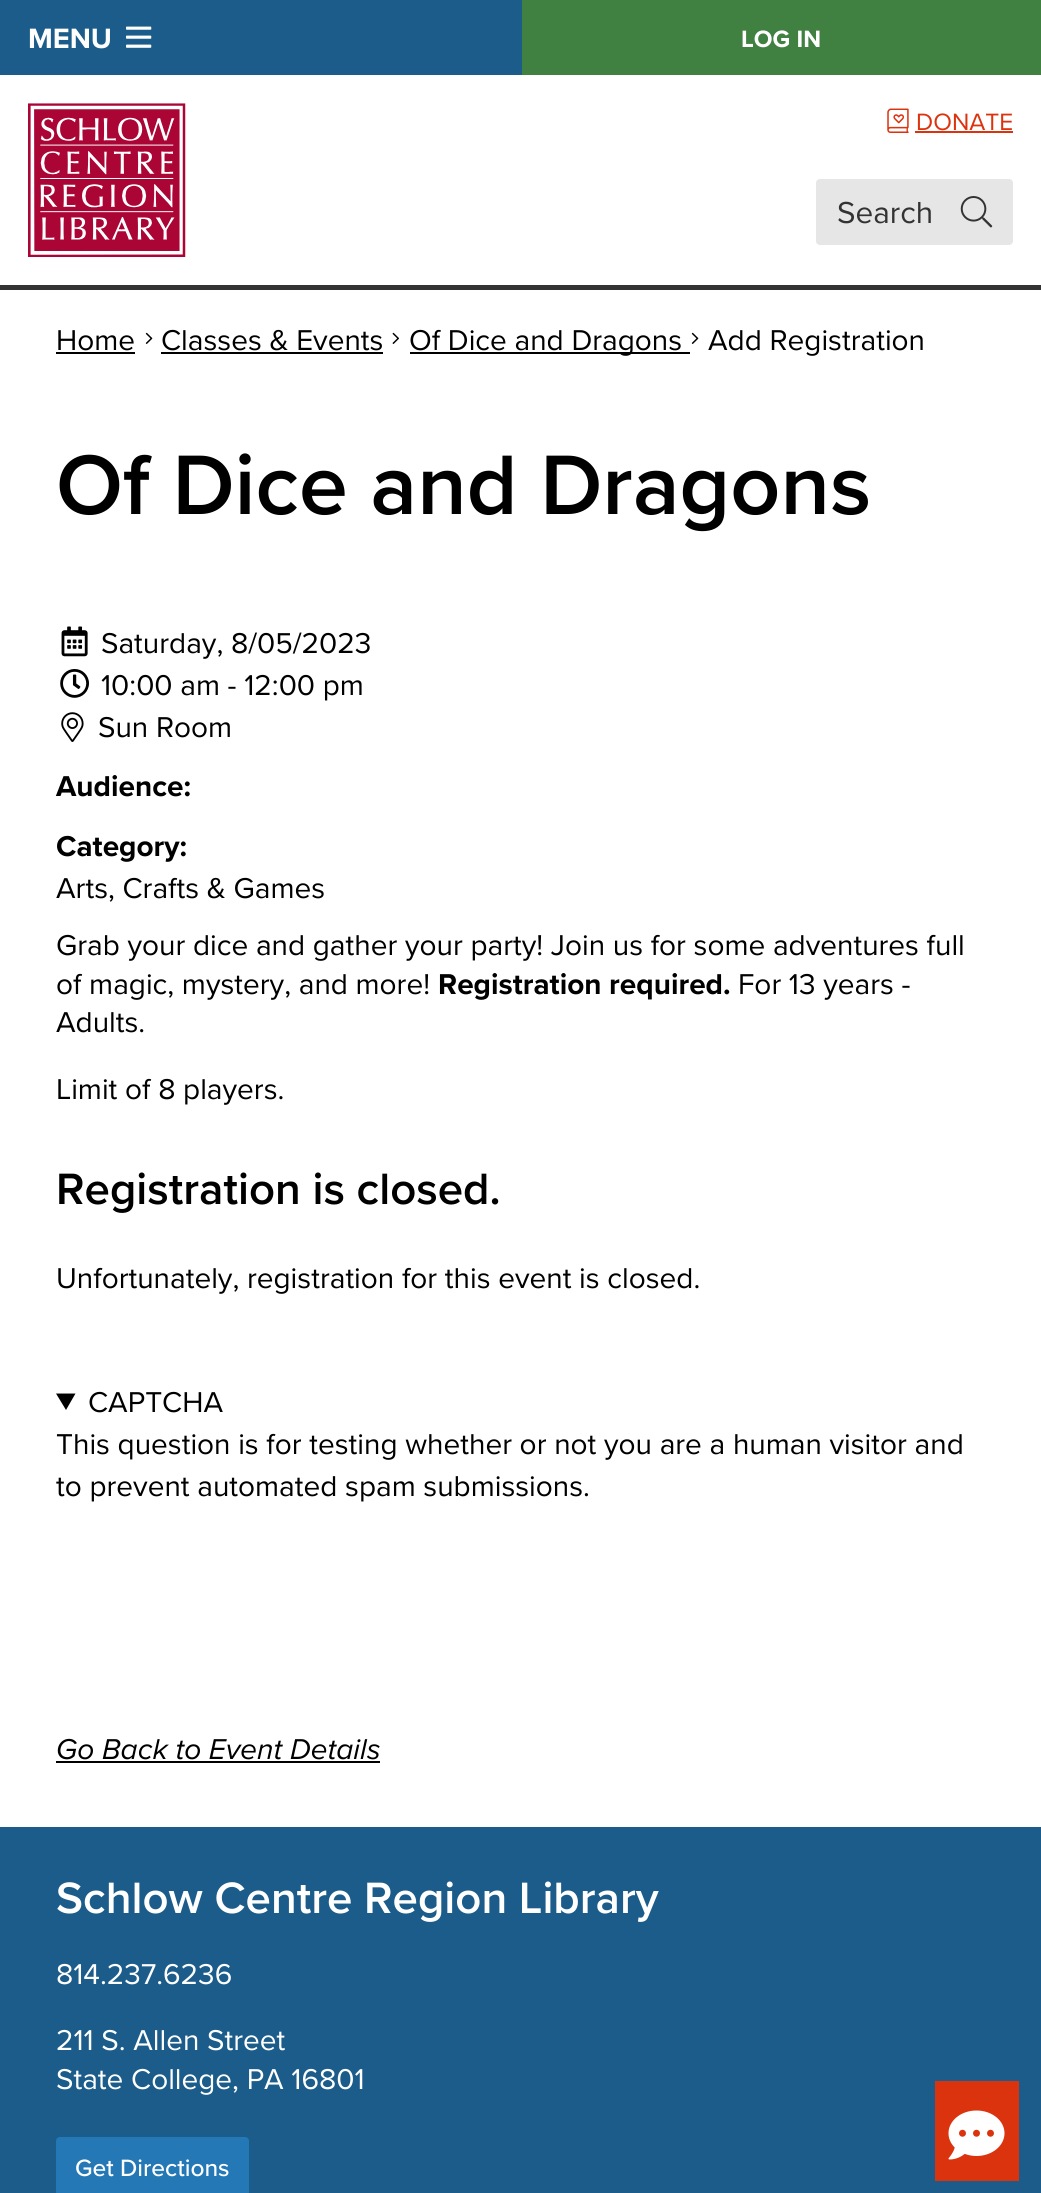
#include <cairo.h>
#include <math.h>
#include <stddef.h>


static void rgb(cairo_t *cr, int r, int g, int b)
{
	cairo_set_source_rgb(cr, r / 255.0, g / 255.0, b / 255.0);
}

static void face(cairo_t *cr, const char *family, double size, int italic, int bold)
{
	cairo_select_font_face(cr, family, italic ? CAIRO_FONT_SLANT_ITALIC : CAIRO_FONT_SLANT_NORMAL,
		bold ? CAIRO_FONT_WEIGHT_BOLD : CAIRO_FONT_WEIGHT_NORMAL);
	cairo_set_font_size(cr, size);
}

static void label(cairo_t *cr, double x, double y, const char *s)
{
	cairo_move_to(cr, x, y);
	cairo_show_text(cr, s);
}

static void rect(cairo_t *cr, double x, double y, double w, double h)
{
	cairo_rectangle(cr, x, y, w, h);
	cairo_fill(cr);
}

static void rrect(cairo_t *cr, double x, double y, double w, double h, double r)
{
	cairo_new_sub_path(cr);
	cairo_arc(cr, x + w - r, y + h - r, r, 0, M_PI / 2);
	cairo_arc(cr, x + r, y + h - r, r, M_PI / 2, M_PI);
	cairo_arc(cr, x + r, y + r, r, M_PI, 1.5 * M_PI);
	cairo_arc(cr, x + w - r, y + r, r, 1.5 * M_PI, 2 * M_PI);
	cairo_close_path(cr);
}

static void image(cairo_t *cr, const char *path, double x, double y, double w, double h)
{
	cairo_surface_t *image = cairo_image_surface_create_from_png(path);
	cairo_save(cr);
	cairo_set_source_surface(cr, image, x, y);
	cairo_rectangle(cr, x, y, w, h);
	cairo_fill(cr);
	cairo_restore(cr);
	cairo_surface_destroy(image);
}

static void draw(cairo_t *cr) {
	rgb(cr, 255, 255, 255);
	cairo_paint(cr);
	rgb(cr, 51, 51, 51);
	rect(cr, 0, 285, 1041, 5);
	rgb(cr, 27, 92, 138);
	rect(cr, 0, 0, 522, 75);
	face(cr, "Proxima Nova", 29, 0, 1);
	rgb(cr, 255, 255, 255);
	label(cr, 28, 48, "MENU");
	image(cr, "image0.png", 126, 26, 26, 22);
	rgb(cr, 64, 128, 65);
	rect(cr, 522, 0, 519, 75);
	face(cr, "Proxima Nova", 24.5, 0, 1);
	rgb(cr, 255, 255, 255);
	label(cr, 741, 47, "LOG IN");
	image(cr, "image1.png", 28, 103, 158, 154);
	image(cr, "image2.png", 887, 108, 22, 25);
	face(cr, "Proxima Nova", 24.5, 0, 0);
	rgb(cr, 220, 51, 15);
	label(cr, 916, 130, "DONATE");
	rect(cr, 915, 131, 98, 2);
	rgb(cr, 230, 230, 230);
	rrect(cr, 816, 179, 197, 66, 4);
	cairo_fill(cr);
	face(cr, "Proxima Nova", 31.5, 0, 0);
	rgb(cr, 51, 51, 51);
	label(cr, 837, 223, "Search");
	image(cr, "image3.png", 960, 196, 33, 32);
	face(cr, "Proxima Nova", 29.75, 0, 0);
	rgb(cr, 0, 0, 0);
	label(cr, 56, 350, "Home");
	rect(cr, 56, 352, 79, 2);
	image(cr, "image4.png", 145, 332, 8, 12);
	label(cr, 161, 350, "Classes & Events");
	rect(cr, 161, 352, 222, 2);
	image(cr, "image5.png", 392, 332, 7, 12);
	rect(cr, 410, 352, 280, 2);
	label(cr, 409, 350, "Of Dice and Dragons");
	image(cr, "image4.png", 691, 332, 8, 12);
	label(cr, 708, 350, "Add Registration");
	face(cr, "Proxima Nova SemiBold", 87.5, 0, 0);
	label(cr, 56, 514, "Of Dice and Dragons");
	image(cr, "image6.png", 61, 626, 27, 31);
	face(cr, "Proxima Nova", 29.75, 0, 0);
	label(cr, 101, 653, "Saturday, 8/05/2023");
	image(cr, "image7.png", 60, 669, 29, 29);
	label(cr, 101, 695, "10:00 am - 12:00 pm");
	image(cr, "image8.png", 61, 712, 23, 30);
	label(cr, 98, 737, "Sun Room");
	face(cr, "Proxima Nova", 29.75, 0, 1);
	label(cr, 56, 796, "Audience:");
	label(cr, 56, 856, "Category:");
	face(cr, "Proxima Nova", 29.75, 0, 0);
	label(cr, 56, 898, "Arts, Crafts & Games");
	label(cr, 56, 955, "Grab your dice and gather your party! Join us for some adventures full");
	label(cr, 56, 994, "of magic, mystery, and more!");
	face(cr, "Proxima Nova", 29.75, 0, 1);
	label(cr, 438, 994, "Registration required.");
	face(cr, "Proxima Nova", 29.75, 0, 0);
	label(cr, 738, 994, "For 13 years -");
	label(cr, 56, 1032, "Adults.");
	label(cr, 56, 1099, "Limit of 8 players.");
	face(cr, "Proxima Nova SemiBold", 45.5, 0, 0);
	label(cr, 56, 1204, "Registration is closed.");
	face(cr, "Proxima Nova", 29.75, 0, 0);
	label(cr, 56, 1288, "Unfortunately, registration for this event is closed.");
	cairo_new_path(cr);
	cairo_move_to(cr, 56, 1393.5);
	cairo_line_to(cr, 75.5, 1393.5);
	cairo_line_to(cr, 66, 1410);
	cairo_close_path(cr);
	cairo_fill(cr);
	label(cr, 88, 1412, "CAPTCHA");
	label(cr, 56, 1454, "This question is for testing whether or not you are a human visitor and");
	label(cr, 56, 1496, "to prevent automated spam submissions.");
	face(cr, "Proxima Nova", 29.75, 1, 0);
	label(cr, 56, 1759, "Go Back to Event Details");
	rect(cr, 56, 1761, 324, 2);
	rgb(cr, 27, 92, 138);
	rect(cr, 0, 1827, 1041, 366);
	face(cr, "Proxima Nova SemiBold", 45.5, 0, 0);
	rgb(cr, 255, 255, 255);
	label(cr, 56, 1913, "Schlow Centre Region Library");
	face(cr, "Proxima Nova", 29.75, 0, 0);
	label(cr, 56, 1984, "814.237.6236");
	label(cr, 56, 2050, "211 S. Allen Street");
	label(cr, 56, 2089, "State College, PA 16801");
	rgb(cr, 35, 120, 181);
	rrect(cr, 56, 2137, 193, 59, 4);
	cairo_fill(cr);
	face(cr, "Proxima Nova Medium", 24.5, 0, 0);
	rgb(cr, 255, 255, 255);
	label(cr, 75, 2176, "Get Directions");
	rgb(cr, 220, 51, 15);
	rect(cr, 935, 2081, 84, 100);
	image(cr, "image9.png", 948, 2110, 57, 50);
}

int main(void) {
	cairo_surface_t *surface = cairo_image_surface_create(CAIRO_FORMAT_RGB24, 1041, 2193);
	cairo_t *cr = cairo_create(surface);
	cairo_font_options_t *options = cairo_font_options_create();
	cairo_font_options_set_hint_metrics(options, CAIRO_HINT_METRICS_OFF);
	cairo_font_options_set_hint_style(options, CAIRO_HINT_STYLE_NONE);
	cairo_set_font_options(cr, options);
	cairo_set_miter_limit(cr, 4);
	draw(cr);
	cairo_surface_write_to_png(surface, "render.png");
	cairo_font_options_destroy(options);
	cairo_destroy(cr);
	cairo_surface_destroy(surface);
	return 0;
}
